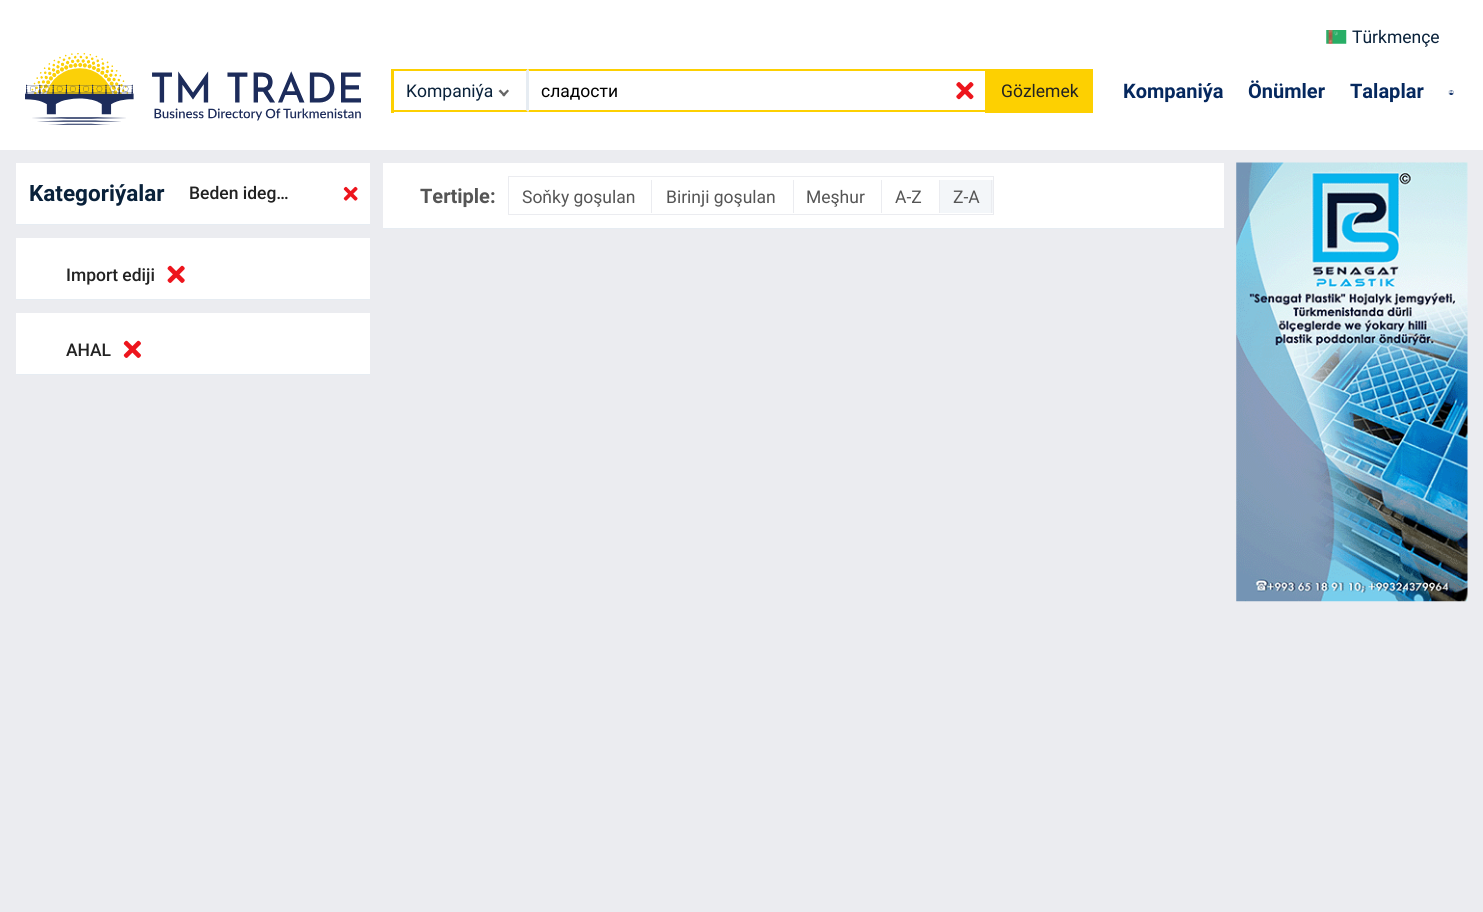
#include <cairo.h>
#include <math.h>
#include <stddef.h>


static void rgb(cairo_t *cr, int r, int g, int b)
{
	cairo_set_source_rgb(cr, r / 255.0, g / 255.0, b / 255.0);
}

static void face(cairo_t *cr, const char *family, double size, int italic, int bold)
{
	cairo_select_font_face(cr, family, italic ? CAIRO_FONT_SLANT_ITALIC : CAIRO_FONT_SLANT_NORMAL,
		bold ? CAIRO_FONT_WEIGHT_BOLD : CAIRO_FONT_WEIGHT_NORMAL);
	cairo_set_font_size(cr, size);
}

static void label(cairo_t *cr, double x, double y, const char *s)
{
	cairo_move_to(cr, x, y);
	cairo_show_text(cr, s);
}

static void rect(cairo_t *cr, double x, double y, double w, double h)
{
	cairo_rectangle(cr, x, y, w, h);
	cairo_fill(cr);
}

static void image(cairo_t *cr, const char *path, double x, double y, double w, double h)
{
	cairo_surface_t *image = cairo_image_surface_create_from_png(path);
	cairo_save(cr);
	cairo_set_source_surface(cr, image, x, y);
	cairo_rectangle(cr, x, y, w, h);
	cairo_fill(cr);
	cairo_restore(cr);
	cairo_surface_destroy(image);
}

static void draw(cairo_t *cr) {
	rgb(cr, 235, 236, 240);
	cairo_paint(cr);
	rgb(cr, 255, 255, 255);
	rect(cr, 0, 0, 1483, 150);
	image(cr, "image0.png", 1326, 30, 21, 14);
	face(cr, "Roboto", 17.5, 0, 0);
	rgb(cr, 9, 33, 58);
	label(cr, 1352, 43, "Türkmençe");
	image(cr, "image1.png", 25, 53, 336, 72);
	rgb(cr, 253, 208, 1);
	cairo_new_path(cr);
	cairo_move_to(cr, 391, 69);
	cairo_line_to(cr, 528, 69);
	cairo_line_to(cr, 526, 71);
	cairo_line_to(cr, 394, 71);
	cairo_close_path(cr);
	cairo_fill(cr);
	rgb(cr, 230, 236, 242);
	cairo_new_path(cr);
	cairo_move_to(cr, 528, 69);
	cairo_line_to(cr, 528, 112);
	cairo_line_to(cr, 526, 110);
	cairo_line_to(cr, 526, 71);
	cairo_close_path(cr);
	cairo_fill(cr);
	rgb(cr, 253, 208, 1);
	cairo_new_path(cr);
	cairo_move_to(cr, 528, 112);
	cairo_line_to(cr, 391, 112);
	cairo_line_to(cr, 394, 110);
	cairo_line_to(cr, 526, 110);
	cairo_close_path(cr);
	cairo_fill(cr);
	rect(cr, 391, 69, 3, 44);
	rgb(cr, 9, 33, 58);
	label(cr, 406, 97, "Kompaniýa");
	rgb(cr, 102, 102, 102);
	cairo_new_path(cr);
	cairo_move_to(cr, 507.5, 89.5);
	cairo_line_to(cr, 509, 91);
	cairo_line_to(cr, 504, 96.5);
	cairo_line_to(cr, 502, 95);
	cairo_close_path(cr);
	cairo_fill(cr);
	cairo_new_path(cr);
	cairo_move_to(cr, 500.5, 89.5);
	cairo_line_to(cr, 505.5, 95);
	cairo_line_to(cr, 504, 96.5);
	cairo_line_to(cr, 498.5, 91);
	cairo_close_path(cr);
	cairo_fill(cr);
	rgb(cr, 253, 208, 1);
	cairo_new_path(cr);
	cairo_move_to(cr, 528, 69);
	cairo_line_to(cr, 988, 69);
	cairo_line_to(cr, 985, 71);
	cairo_line_to(cr, 529, 71);
	cairo_close_path(cr);
	cairo_fill(cr);
	rect(cr, 985, 69, 3, 44);
	cairo_new_path(cr);
	cairo_move_to(cr, 988, 112);
	cairo_line_to(cr, 528, 112);
	cairo_line_to(cr, 529, 110);
	cairo_line_to(cr, 985, 110);
	cairo_close_path(cr);
	cairo_fill(cr);
	rgb(cr, 230, 236, 242);
	cairo_new_path(cr);
	cairo_move_to(cr, 528, 112);
	cairo_line_to(cr, 528, 69);
	cairo_line_to(cr, 529, 71);
	cairo_line_to(cr, 529, 110);
	cairo_close_path(cr);
	cairo_fill(cr);
	rgb(cr, 0, 0, 0);
	label(cr, 541, 97, "сладости");
	image(cr, "image2.png", 956, 82, 18, 18);
	rgb(cr, 253, 208, 1);
	rect(cr, 988, 69, 105, 44);
	rgb(cr, 34, 34, 34);
	label(cr, 1001, 97, "Gözlemek");
	face(cr, "Roboto", 20, 0, 1);
	rgb(cr, 5, 40, 94);
	label(cr, 1123, 98, "Kompaniýa");
	label(cr, 1248, 98, "Önümler");
	label(cr, 1350, 98, "Talaplar");
	image(cr, "image3.png", 1448, 90, 6, 5);
	rgb(cr, 255, 255, 255);
	rect(cr, 16, 163, 354, 61);
	rgb(cr, 230, 236, 242);
	rect(cr, 16, 224, 354, 1);
	face(cr, "Roboto", 22.5, 0, 1);
	rgb(cr, 9, 33, 58);
	label(cr, 29, 201, "Kategoriýalar");
	face(cr, "Roboto Medium", 17.5, 0, 0);
	rgb(cr, 34, 34, 34);
	label(cr, 189, 199, "Beden ideg…");
	image(cr, "image4.png", 343, 186, 15, 15);
	rgb(cr, 255, 255, 255);
	rect(cr, 16, 238, 354, 61);
	rgb(cr, 230, 236, 242);
	rect(cr, 16, 299, 354, 1);
	rgb(cr, 34, 34, 34);
	label(cr, 66, 281, "Import ediji");
	image(cr, "image5.png", 167, 265, 18, 18);
	rgb(cr, 255, 255, 255);
	rect(cr, 16, 313, 354, 61);
	rgb(cr, 230, 236, 242);
	rect(cr, 16, 374, 354, 1);
	rgb(cr, 34, 34, 34);
	label(cr, 66, 356, "AHAL");
	image(cr, "image6.png", 123, 340, 18, 18);
	rgb(cr, 255, 255, 255);
	rect(cr, 383, 163, 841, 65);
	rgb(cr, 230, 236, 242);
	rect(cr, 383, 228, 841, 1);
	face(cr, "Roboto", 20, 0, 1);
	rgb(cr, 85, 85, 85);
	label(cr, 420, 203, "Tertiple:");
	cairo_rectangle(cr, 508.5, 176.5, 485, 38);
	rgb(cr, 235, 236, 240);
	cairo_set_line_width(cr, 1);
	cairo_stroke(cr);
	face(cr, "Roboto", 17.5, 0, 0);
	rgb(cr, 85, 85, 85);
	label(cr, 522, 203, "Soňky goşulan");
	rgb(cr, 235, 236, 240);
	rect(cr, 651, 180, 1, 33);
	rgb(cr, 85, 85, 85);
	label(cr, 666, 203, "Birinji goşulan");
	rgb(cr, 235, 236, 240);
	rect(cr, 793, 180, 1, 33);
	rgb(cr, 85, 85, 85);
	label(cr, 806, 203, "Meşhur");
	rgb(cr, 235, 236, 240);
	rect(cr, 881, 180, 1, 33);
	rgb(cr, 85, 85, 85);
	label(cr, 895, 203, "A-Z");
	rgb(cr, 235, 236, 240);
	rect(cr, 939, 180, 1, 33);
	rgb(cr, 243, 246, 249);
	rect(cr, 940, 180, 53, 33);
	rgb(cr, 85, 85, 85);
	label(cr, 953, 203, "Z-A");
	rgb(cr, 235, 236, 240);
	rect(cr, 991, 180, 1, 33);
	image(cr, "image7.png", 1236, 162, 232, 440);
}

int main(void) {
	cairo_surface_t *surface = cairo_image_surface_create(CAIRO_FORMAT_RGB24, 1483, 912);
	cairo_t *cr = cairo_create(surface);
	cairo_font_options_t *options = cairo_font_options_create();
	cairo_font_options_set_hint_metrics(options, CAIRO_HINT_METRICS_OFF);
	cairo_font_options_set_hint_style(options, CAIRO_HINT_STYLE_NONE);
	cairo_set_font_options(cr, options);
	cairo_set_miter_limit(cr, 4);
	draw(cr);
	cairo_surface_write_to_png(surface, "render.png");
	cairo_font_options_destroy(options);
	cairo_destroy(cr);
	cairo_surface_destroy(surface);
	return 0;
}
